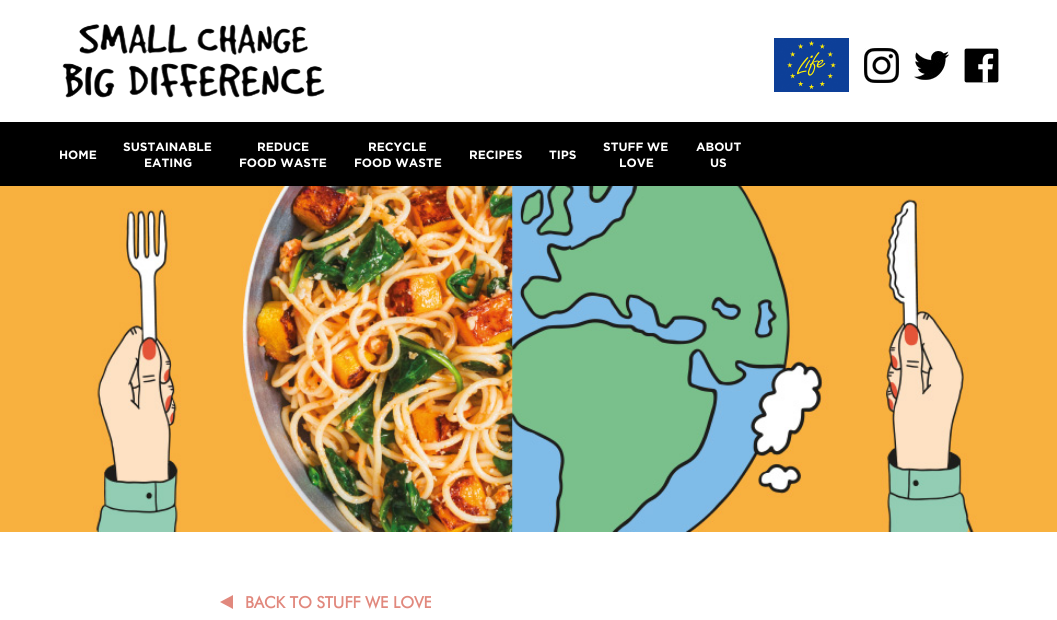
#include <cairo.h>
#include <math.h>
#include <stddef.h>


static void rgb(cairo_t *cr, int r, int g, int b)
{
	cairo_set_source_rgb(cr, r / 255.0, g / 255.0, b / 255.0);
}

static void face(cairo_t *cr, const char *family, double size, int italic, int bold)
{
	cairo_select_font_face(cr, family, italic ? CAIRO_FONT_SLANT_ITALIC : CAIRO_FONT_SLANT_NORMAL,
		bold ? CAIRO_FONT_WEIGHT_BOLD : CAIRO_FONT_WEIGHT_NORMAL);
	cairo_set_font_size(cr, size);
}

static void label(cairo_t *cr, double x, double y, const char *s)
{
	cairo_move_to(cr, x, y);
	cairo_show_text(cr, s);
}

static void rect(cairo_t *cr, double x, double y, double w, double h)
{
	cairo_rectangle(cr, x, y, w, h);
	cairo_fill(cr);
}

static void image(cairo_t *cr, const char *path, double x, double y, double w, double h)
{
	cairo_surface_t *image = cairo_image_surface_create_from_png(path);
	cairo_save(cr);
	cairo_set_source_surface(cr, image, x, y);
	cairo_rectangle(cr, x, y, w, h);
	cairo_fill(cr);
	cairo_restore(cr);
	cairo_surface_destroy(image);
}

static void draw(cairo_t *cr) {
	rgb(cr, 255, 255, 255);
	cairo_paint(cr);
	image(cr, "image0.png", 62, 24, 263, 74);
	image(cr, "image1.png", 774, 38, 75, 54);
	image(cr, "image2.png", 864, 48, 35, 35);
	image(cr, "image3.png", 914, 51, 35, 29);
	image(cr, "image4.png", 964, 48, 35, 35);
	rgb(cr, 0, 0, 0);
	rect(cr, 0, 122, 1057, 64);
	face(cr, "Gotham", 12, 0, 1);
	rgb(cr, 255, 255, 255);
	label(cr, 59, 159, "HOME");
	label(cr, 123, 151, "SUSTAINABLE");
	label(cr, 144, 167, "EATING");
	label(cr, 257, 151, "REDUCE");
	label(cr, 239, 167, "FOOD WASTE");
	label(cr, 368, 151, "RECYCLE");
	label(cr, 354, 167, "FOOD WASTE");
	label(cr, 469, 159, "RECIPES");
	label(cr, 549, 159, "TIPS");
	label(cr, 603, 151, "STUFF WE");
	label(cr, 619, 167, "LOVE");
	label(cr, 696, 151, "ABOUT");
	label(cr, 710, 167, "US");
	image(cr, "image5.png", 0, 186, 1057, 346);
	rgb(cr, 225, 136, 125);
	cairo_new_path(cr);
	cairo_move_to(cr, 233, 595);
	cairo_line_to(cr, 233, 609);
	cairo_line_to(cr, 220, 602);
	cairo_close_path(cr);
	cairo_fill(cr);
	face(cr, "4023", 16, 0, 1);
	label(cr, 245, 608, "BACK TO STUFF WE LOVE");
}

int main(void) {
	cairo_surface_t *surface = cairo_image_surface_create(CAIRO_FORMAT_RGB24, 1057, 620);
	cairo_t *cr = cairo_create(surface);
	cairo_font_options_t *options = cairo_font_options_create();
	cairo_font_options_set_hint_metrics(options, CAIRO_HINT_METRICS_OFF);
	cairo_font_options_set_hint_style(options, CAIRO_HINT_STYLE_NONE);
	cairo_set_font_options(cr, options);
	cairo_set_miter_limit(cr, 4);
	draw(cr);
	cairo_surface_write_to_png(surface, "render.png");
	cairo_font_options_destroy(options);
	cairo_destroy(cr);
	cairo_surface_destroy(surface);
	return 0;
}
